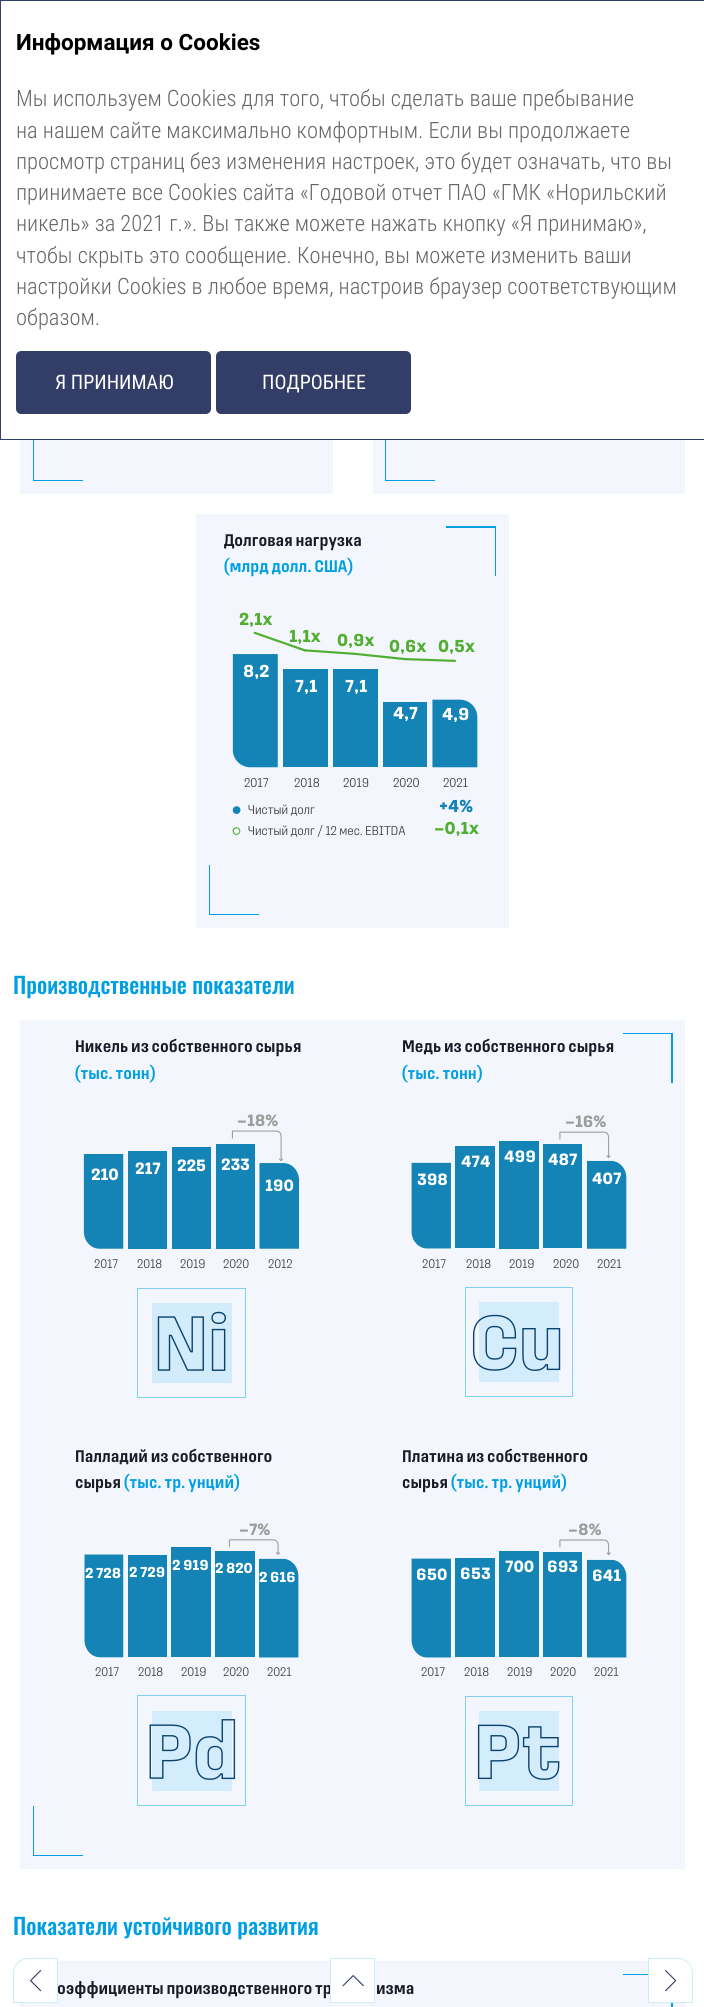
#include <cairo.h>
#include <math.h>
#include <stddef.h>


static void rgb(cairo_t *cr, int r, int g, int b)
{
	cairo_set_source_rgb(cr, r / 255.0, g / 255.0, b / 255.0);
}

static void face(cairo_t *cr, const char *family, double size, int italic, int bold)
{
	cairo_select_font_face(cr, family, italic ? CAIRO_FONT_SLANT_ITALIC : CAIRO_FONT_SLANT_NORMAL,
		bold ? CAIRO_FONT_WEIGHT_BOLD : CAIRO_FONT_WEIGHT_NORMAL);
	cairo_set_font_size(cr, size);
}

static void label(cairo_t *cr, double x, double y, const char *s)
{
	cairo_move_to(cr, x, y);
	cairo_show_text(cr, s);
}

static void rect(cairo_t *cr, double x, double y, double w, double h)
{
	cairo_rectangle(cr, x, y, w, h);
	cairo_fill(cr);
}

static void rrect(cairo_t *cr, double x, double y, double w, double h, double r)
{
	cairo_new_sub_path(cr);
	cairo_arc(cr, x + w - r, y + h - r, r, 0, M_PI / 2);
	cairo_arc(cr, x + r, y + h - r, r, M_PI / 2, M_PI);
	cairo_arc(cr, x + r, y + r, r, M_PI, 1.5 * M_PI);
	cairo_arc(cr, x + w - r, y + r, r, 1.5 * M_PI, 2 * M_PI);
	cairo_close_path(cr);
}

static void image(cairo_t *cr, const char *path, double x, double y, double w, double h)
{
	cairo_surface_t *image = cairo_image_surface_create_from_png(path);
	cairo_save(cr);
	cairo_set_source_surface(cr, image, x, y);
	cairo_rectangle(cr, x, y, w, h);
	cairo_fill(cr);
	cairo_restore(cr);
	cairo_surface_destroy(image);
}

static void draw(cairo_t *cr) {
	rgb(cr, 255, 255, 255);
	cairo_paint(cr);
	rgb(cr, 243, 247, 253);
	rect(cr, 20, 440, 313, 54);
	cairo_save(cr);
	cairo_rectangle(cr, 33, 431, 50, 50);
	cairo_clip(cr);
	rgb(cr, 0, 159, 227);
	cairo_set_fill_rule(cr, CAIRO_FILL_RULE_EVEN_ODD);
	cairo_new_path(cr);
	cairo_move_to(cr, -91, 308);
	cairo_line_to(cr, 206, 308);
	cairo_line_to(cr, 206, 605);
	cairo_line_to(cr, -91, 605);
	cairo_close_path(cr);
	cairo_move_to(cr, 34, 430);
	cairo_line_to(cr, 84, 430);
	cairo_line_to(cr, 84, 480);
	cairo_line_to(cr, 34, 480);
	cairo_close_path(cr);
	cairo_fill(cr);
	cairo_restore(cr);
	rect(cr, 373, 440, 312, 54);
	cairo_save(cr);
	cairo_rectangle(cr, 385, 431, 50, 50);
	cairo_clip(cr);
	rgb(cr, 0, 159, 227);
	cairo_set_fill_rule(cr, CAIRO_FILL_RULE_EVEN_ODD);
	cairo_new_path(cr);
	cairo_move_to(cr, 261, 308);
	cairo_line_to(cr, 559, 308);
	cairo_line_to(cr, 559, 605);
	cairo_line_to(cr, 261, 605);
	cairo_close_path(cr);
	cairo_move_to(cr, 386, 430);
	cairo_line_to(cr, 436, 430);
	cairo_line_to(cr, 436, 480);
	cairo_line_to(cr, 386, 480);
	cairo_close_path(cr);
	cairo_fill(cr);
	cairo_restore(cr);
	rgb(cr, 255, 255, 255);
	rect(cr, 33, 431, 353, 8);
	cairo_rectangle(cr, 0.5, 0.5, 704, 439);
	rgb(cr, 50, 61, 104);
	cairo_set_line_width(cr, 1);
	cairo_stroke(cr);
	face(cr, "Roboto", 22.5, 0, 1);
	rgb(cr, 0, 0, 0);
	label(cr, 16, 50, "Информация о Cookies");
	face(cr, "Roboto Condensed Light", 22.5, 0, 0);
	rgb(cr, 102, 102, 102);
	label(cr, 16, 106, "Мы используем Cookies для того, чтобы сделать ваше пребывание");
	label(cr, 16, 138, "на нашем сайте максимально комфортным. Если вы продолжаете");
	label(cr, 16, 169, "просмотр страниц без изменения настроек, это будет означать, что вы");
	label(cr, 16, 200, "принимаете все Cookies сайта «Годовой отчет ПАО «ГМК «Норильский");
	label(cr, 16, 231, "никель» за 2021 г.». Вы также можете нажать кнопку «Я принимаю»,");
	label(cr, 16, 263, "чтобы скрыть это сообщение. Конечно, вы можете изменить ваши");
	label(cr, 16, 294, "настройки Cookies в любое время, настроив браузер соответствующим");
	label(cr, 16, 325, "образом.");
	rgb(cr, 50, 61, 104);
	rrect(cr, 17.5, 352.5, 192, 60, 3.5);
	cairo_fill_preserve(cr);
	cairo_set_line_width(cr, 3);
	cairo_stroke(cr);
	face(cr, "Roboto Condensed", 20, 0, 0);
	rgb(cr, 255, 255, 255);
	label(cr, 55, 389, "Я ПРИНИМАЮ");
	rgb(cr, 50, 61, 104);
	rrect(cr, 217.5, 352.5, 192, 60, 3.5);
	cairo_fill_preserve(cr);
	cairo_stroke(cr);
	rgb(cr, 255, 255, 255);
	label(cr, 262, 389, "ПОДРОБНЕЕ");
	rgb(cr, 243, 247, 253);
	rect(cr, 196, 514, 313, 414);
	cairo_save(cr);
	cairo_rectangle(cr, 446, 526, 50, 50);
	cairo_clip(cr);
	rgb(cr, 0, 159, 227);
	cairo_set_fill_rule(cr, CAIRO_FILL_RULE_EVEN_ODD);
	cairo_new_path(cr);
	cairo_move_to(cr, 322, 402);
	cairo_line_to(cr, 620, 402);
	cairo_line_to(cr, 620, 700);
	cairo_line_to(cr, 322, 700);
	cairo_close_path(cr);
	cairo_move_to(cr, 445, 528);
	cairo_line_to(cr, 495, 528);
	cairo_line_to(cr, 495, 578);
	cairo_line_to(cr, 445, 578);
	cairo_close_path(cr);
	cairo_fill(cr);
	cairo_restore(cr);
	face(cr, "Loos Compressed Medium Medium", 17.5, 0, 0);
	rgb(cr, 26, 27, 37);
	label(cr, 224, 546, "Долговая нагрузка");
	rgb(cr, 0, 159, 227);
	label(cr, 224, 572, "(млрд долл. США)");
	image(cr, "image0.png", 232, 631, 246, 204);
	face(cr, "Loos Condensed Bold", 18, 0, 1);
	rgb(cr, 82, 174, 50);
	label(cr, 239, 625, "2,1x");
	label(cr, 289, 642, "1,1x");
	label(cr, 337, 646, "0,9x");
	label(cr, 389, 652, "0,6x");
	label(cr, 438, 652, "0,5x");
	rgb(cr, 255, 255, 255);
	label(cr, 243, 677, "8,2");
	label(cr, 295, 692, "7,1");
	label(cr, 345, 692, "7,1");
	label(cr, 393, 719, "4,7");
	label(cr, 442, 720, "4,9");
	face(cr, "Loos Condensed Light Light", 13.25, 0, 0);
	rgb(cr, 60, 60, 59);
	label(cr, 244, 787, "2017");
	label(cr, 294, 787, "2018");
	label(cr, 343, 787, "2019");
	label(cr, 393, 787, "2020");
	label(cr, 443, 787, "2021");
	label(cr, 248, 814, "Чистый долг");
	face(cr, "Loos Condensed Bold", 18, 0, 1);
	rgb(cr, 19, 132, 181);
	label(cr, 439, 812, "+4%");
	face(cr, "Loos Condensed Light Light", 13.25, 0, 0);
	rgb(cr, 60, 60, 59);
	label(cr, 248, 835, "Чистый долг / 12 мес. EBITDA");
	face(cr, "Loos Condensed Bold", 18, 0, 1);
	rgb(cr, 82, 174, 50);
	label(cr, 434, 834, "–0,1х");
	cairo_save(cr);
	cairo_rectangle(cr, 209, 865, 50, 50);
	cairo_clip(cr);
	rgb(cr, 0, 159, 227);
	cairo_set_fill_rule(cr, CAIRO_FILL_RULE_EVEN_ODD);
	cairo_new_path(cr);
	cairo_move_to(cr, 85, 741);
	cairo_line_to(cr, 382, 741);
	cairo_line_to(cr, 382, 1039);
	cairo_line_to(cr, 85, 1039);
	cairo_close_path(cr);
	cairo_move_to(cr, 210, 864);
	cairo_line_to(cr, 260, 864);
	cairo_line_to(cr, 260, 914);
	cairo_line_to(cr, 210, 914);
	cairo_close_path(cr);
	cairo_fill(cr);
	cairo_restore(cr);
	face(cr, "Oswald Medium", 22.5, 0, 0);
	rgb(cr, 0, 159, 227);
	label(cr, 13, 994, "Производственные показатели");
	rgb(cr, 243, 247, 253);
	rect(cr, 20, 1020, 665, 849);
	face(cr, "Loos Compressed Medium Medium", 17.5, 0, 0);
	rgb(cr, 26, 27, 37);
	label(cr, 75, 1052, "Никель из собственного сырья");
	rgb(cr, 0, 159, 227);
	label(cr, 75, 1079, "(тыс. тонн)");
	image(cr, "image1.png", 83, 1130, 217, 268);
	face(cr, "Loos Condensed Bold", 17, 0, 1);
	rgb(cr, 157, 157, 156);
	label(cr, 237, 1126, "–18%");
	rgb(cr, 255, 255, 255);
	label(cr, 91, 1180, "210");
	label(cr, 135, 1174, "217");
	label(cr, 177, 1171, "225");
	label(cr, 221, 1170, "233");
	label(cr, 265, 1191, "190");
	face(cr, "Loos Condensed Light Light", 13, 0, 0);
	rgb(cr, 60, 60, 59);
	label(cr, 94, 1268, "2017");
	label(cr, 137, 1268, "2018");
	label(cr, 180, 1268, "2019");
	label(cr, 223, 1268, "2020");
	label(cr, 268, 1268, "2012");
	face(cr, "Loos Compressed Medium Medium", 17.5, 0, 0);
	rgb(cr, 26, 27, 37);
	label(cr, 402, 1052, "Медь из собственного сырья");
	rgb(cr, 0, 159, 227);
	label(cr, 402, 1079, "(тыс. тонн)");
	image(cr, "image2.png", 411, 1131, 216, 266);
	face(cr, "Loos Condensed Bold", 17, 0, 1);
	rgb(cr, 157, 157, 156);
	label(cr, 565, 1127, "–16%");
	rgb(cr, 255, 255, 255);
	label(cr, 461, 1167, "474");
	label(cr, 504, 1162, "499");
	label(cr, 548, 1165, "487");
	label(cr, 417, 1185, "398");
	label(cr, 592, 1184, "407");
	face(cr, "Loos Condensed Light Light", 13, 0, 0);
	rgb(cr, 60, 60, 59);
	label(cr, 422, 1268, "2017");
	label(cr, 466, 1268, "2018");
	label(cr, 509, 1268, "2019");
	label(cr, 553, 1268, "2020");
	label(cr, 597, 1268, "2021");
	face(cr, "Loos Compressed Medium Medium", 17.5, 0, 0);
	rgb(cr, 26, 27, 37);
	label(cr, 75, 1462, "Палладий из собственного");
	label(cr, 75, 1488, "сырья");
	rgb(cr, 0, 159, 227);
	label(cr, 124, 1488, "(тыс. тр. унций)");
	image(cr, "image3.png", 84, 1539, 215, 267);
	face(cr, "Loos Condensed Bold", 17, 0, 1);
	rgb(cr, 157, 157, 156);
	label(cr, 239, 1535, "–7%");
	face(cr, "Loos Condensed Bold", 15, 0, 1);
	rgb(cr, 255, 255, 255);
	label(cr, 85, 1578, "2 728");
	label(cr, 129, 1577, "2 729");
	label(cr, 172, 1570, "2 919");
	label(cr, 215, 1573, "2 820");
	label(cr, 259, 1582, "2 616");
	face(cr, "Loos Condensed Light Light", 13, 0, 0);
	rgb(cr, 60, 60, 59);
	label(cr, 95, 1676, "2017");
	label(cr, 138, 1676, "2018");
	label(cr, 181, 1676, "2019");
	label(cr, 223, 1676, "2020");
	label(cr, 267, 1676, "2021");
	face(cr, "Loos Compressed Medium Medium", 17.5, 0, 0);
	rgb(cr, 26, 27, 37);
	label(cr, 402, 1462, "Платина из собственного");
	label(cr, 402, 1488, "сырья");
	rgb(cr, 0, 159, 227);
	label(cr, 451, 1488, "(тыс. тр. унций)");
	image(cr, "image4.png", 411, 1539, 216, 267);
	face(cr, "Loos Condensed Bold", 17, 0, 1);
	rgb(cr, 157, 157, 156);
	label(cr, 568, 1535, "–8%");
	rgb(cr, 255, 255, 255);
	label(cr, 416, 1580, "650");
	label(cr, 460, 1579, "653");
	label(cr, 505, 1572, "700");
	label(cr, 547, 1572, "693");
	label(cr, 592, 1581, "641");
	face(cr, "Loos Condensed Light Light", 13, 0, 0);
	rgb(cr, 60, 60, 59);
	label(cr, 421, 1676, "2017");
	label(cr, 464, 1676, "2018");
	label(cr, 507, 1676, "2019");
	label(cr, 550, 1676, "2020");
	label(cr, 594, 1676, "2021");
	cairo_save(cr);
	cairo_rectangle(cr, 623, 1033, 50, 50);
	cairo_clip(cr);
	rgb(cr, 0, 159, 227);
	cairo_set_fill_rule(cr, CAIRO_FILL_RULE_EVEN_ODD);
	cairo_new_path(cr);
	cairo_move_to(cr, 499, 909);
	cairo_line_to(cr, 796, 909);
	cairo_line_to(cr, 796, 1206);
	cairo_line_to(cr, 499, 1206);
	cairo_close_path(cr);
	cairo_move_to(cr, 621, 1034);
	cairo_line_to(cr, 671, 1034);
	cairo_line_to(cr, 671, 1084);
	cairo_line_to(cr, 621, 1084);
	cairo_close_path(cr);
	cairo_fill(cr);
	cairo_restore(cr);
	cairo_save(cr);
	cairo_rectangle(cr, 33, 1806, 50, 50);
	cairo_clip(cr);
	rgb(cr, 0, 159, 227);
	cairo_set_fill_rule(cr, CAIRO_FILL_RULE_EVEN_ODD);
	cairo_new_path(cr);
	cairo_move_to(cr, -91, 1682);
	cairo_line_to(cr, 206, 1682);
	cairo_line_to(cr, 206, 1980);
	cairo_line_to(cr, -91, 1980);
	cairo_close_path(cr);
	cairo_move_to(cr, 34, 1805);
	cairo_line_to(cr, 84, 1805);
	cairo_line_to(cr, 84, 1855);
	cairo_line_to(cr, 34, 1855);
	cairo_close_path(cr);
	cairo_fill(cr);
	cairo_restore(cr);
	face(cr, "Oswald Medium", 22.5, 0, 0);
	rgb(cr, 0, 159, 227);
	label(cr, 13, 1935, "Показатели устойчивого развития");
	rgb(cr, 243, 247, 253);
	rect(cr, 20, 1961, 665, 46);
	face(cr, "Loos Compressed Medium Medium", 17.5, 0, 0);
	rgb(cr, 26, 27, 37);
	label(cr, 57, 1994, "оэффициенты производственного тр");
	label(cr, 376, 1994, "изма");
	cairo_save(cr);
	cairo_rectangle(cr, 623, 1974, 50, 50);
	cairo_clip(cr);
	rgb(cr, 0, 159, 227);
	cairo_set_fill_rule(cr, CAIRO_FILL_RULE_EVEN_ODD);
	cairo_new_path(cr);
	cairo_move_to(cr, 499, 1850);
	cairo_line_to(cr, 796, 1850);
	cairo_line_to(cr, 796, 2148);
	cairo_line_to(cr, 499, 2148);
	cairo_close_path(cr);
	cairo_move_to(cr, 621, 1975);
	cairo_line_to(cr, 671, 1975);
	cairo_line_to(cr, 671, 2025);
	cairo_line_to(cr, 621, 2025);
	cairo_close_path(cr);
	cairo_fill(cr);
	cairo_restore(cr);
	rgb(cr, 255, 255, 255);
	cairo_new_path(cr);
	cairo_move_to(cr, 28, 1958.5);
	cairo_line_to(cr, 57.5, 1958.5);
	cairo_line_to(cr, 57.5, 2002.5);
	cairo_line_to(cr, 13.5, 2002.5);
	cairo_line_to(cr, 13.5, 1973);
	cairo_curve_to(cr, 13.5, 1965, 20, 1958.5, 28, 1958.5);
	cairo_close_path(cr);
	cairo_fill_preserve(cr);
	rgb(cr, 204, 236, 249);
	cairo_set_line_width(cr, 1);
	cairo_stroke(cr);
	image(cr, "image5.png", 30, 1970, 12, 22);
	rgb(cr, 255, 255, 255);
	rect(cr, 331, 1961, 43, 41);
	cairo_rectangle(cr, 330.5, 1958.5, 44, 44);
	rgb(cr, 204, 236, 249);
	cairo_stroke(cr);
	image(cr, "image6.png", 342, 1975, 22, 12);
	rgb(cr, 255, 255, 255);
	cairo_new_path(cr);
	cairo_move_to(cr, 648.5, 1958.5);
	cairo_line_to(cr, 678, 1958.5);
	cairo_curve_to(cr, 686, 1958.5, 692.5, 1965, 692.5, 1973);
	cairo_line_to(cr, 692.5, 2002.5);
	cairo_line_to(cr, 648.5, 2002.5);
	cairo_close_path(cr);
	cairo_fill_preserve(cr);
	rgb(cr, 204, 236, 249);
	cairo_stroke(cr);
	image(cr, "image7.png", 665, 1970, 12, 22);
}

int main(void) {
	cairo_surface_t *surface = cairo_image_surface_create(CAIRO_FORMAT_RGB24, 704, 2007);
	cairo_t *cr = cairo_create(surface);
	cairo_font_options_t *options = cairo_font_options_create();
	cairo_font_options_set_hint_metrics(options, CAIRO_HINT_METRICS_OFF);
	cairo_font_options_set_hint_style(options, CAIRO_HINT_STYLE_NONE);
	cairo_set_font_options(cr, options);
	cairo_set_miter_limit(cr, 4);
	draw(cr);
	cairo_surface_write_to_png(surface, "render.png");
	cairo_font_options_destroy(options);
	cairo_destroy(cr);
	cairo_surface_destroy(surface);
	return 0;
}
